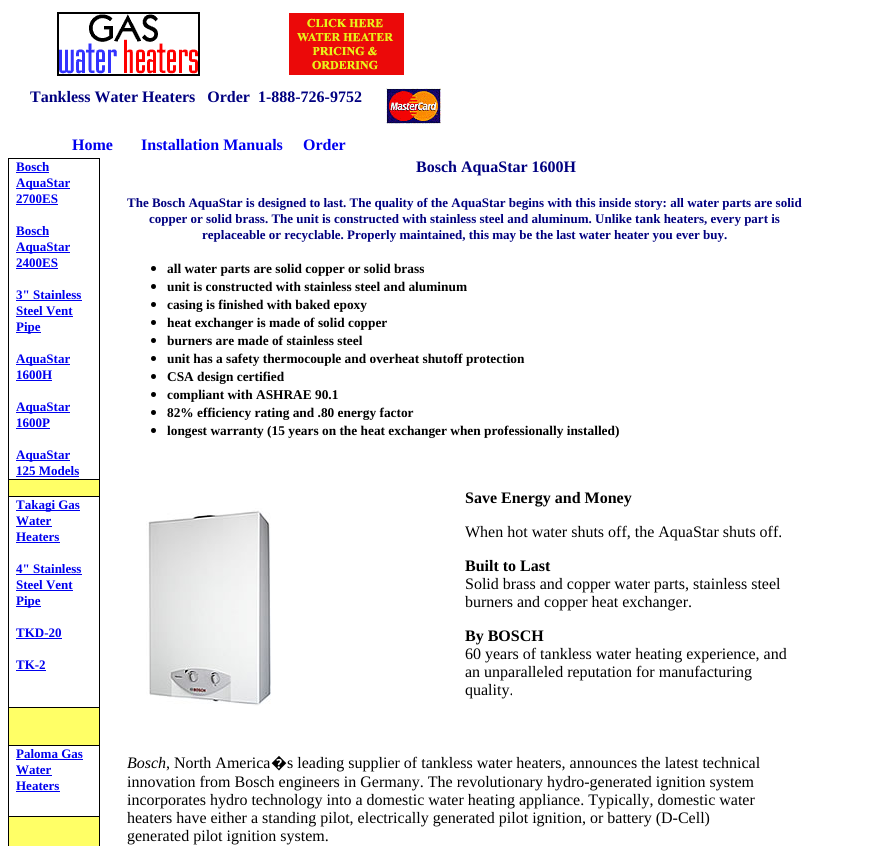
#include <cairo.h>
#include <math.h>
#include <stddef.h>


static void rgb(cairo_t *cr, int r, int g, int b)
{
	cairo_set_source_rgb(cr, r / 255.0, g / 255.0, b / 255.0);
}

static void face(cairo_t *cr, const char *family, double size, int italic, int bold)
{
	cairo_select_font_face(cr, family, italic ? CAIRO_FONT_SLANT_ITALIC : CAIRO_FONT_SLANT_NORMAL,
		bold ? CAIRO_FONT_WEIGHT_BOLD : CAIRO_FONT_WEIGHT_NORMAL);
	cairo_set_font_size(cr, size);
}

static void label(cairo_t *cr, double x, double y, const char *s)
{
	cairo_move_to(cr, x, y);
	cairo_show_text(cr, s);
}

static void rect(cairo_t *cr, double x, double y, double w, double h)
{
	cairo_rectangle(cr, x, y, w, h);
	cairo_fill(cr);
}

static void image(cairo_t *cr, const char *path, double x, double y, double w, double h)
{
	cairo_surface_t *image = cairo_image_surface_create_from_png(path);
	cairo_save(cr);
	cairo_set_source_surface(cr, image, x, y);
	cairo_rectangle(cr, x, y, w, h);
	cairo_fill(cr);
	cairo_restore(cr);
	cairo_surface_destroy(image);
}

static void draw(cairo_t *cr) {
	rgb(cr, 255, 255, 255);
	cairo_paint(cr);
	cairo_rectangle(cr, 58, 13, 141, 62);
	rgb(cr, 0, 0, 0);
	cairo_stroke(cr);
	image(cr, "image0.png", 59, 14, 139, 60);
	image(cr, "image1.png", 289, 13, 115, 62);
	face(cr, "Liberation Serif", 16, 0, 1);
	rgb(cr, 0, 0, 128);
	label(cr, 30, 102, "Tankless Water Heaters   Order  1-888-726-9752");
	image(cr, "image2.png", 386, 88, 55, 36);
	rgb(cr, 0, 0, 238);
	label(cr, 72, 150, "Home");
	label(cr, 141, 150, "Installation Manuals");
	label(cr, 303, 150, "Order");
	rgb(cr, 0, 0, 0);
	rect(cr, 8, 158, 92, 1);
	rect(cr, 99, 479, 1, 367);
	rect(cr, 99, 158, 1, 322);
	rect(cr, 8, 816, 1, 30);
	rect(cr, 8, 816, 92, 1);
	rect(cr, 8, 745, 1, 72);
	rect(cr, 8, 745, 92, 1);
	rect(cr, 8, 707, 1, 39);
	rect(cr, 8, 707, 92, 1);
	rect(cr, 8, 496, 1, 212);
	rect(cr, 8, 496, 92, 1);
	rect(cr, 8, 479, 1, 18);
	rect(cr, 8, 479, 92, 1);
	rect(cr, 8, 158, 1, 322);
	face(cr, "Liberation Serif", 13, 0, 1);
	rgb(cr, 0, 0, 238);
	label(cr, 16, 171, "Bosch");
	rect(cr, 16, 172, 33, 1);
	rect(cr, 16, 188, 54, 1);
	label(cr, 16, 187, "AquaStar");
	label(cr, 16, 203, "2700ES");
	rect(cr, 16, 204, 42, 1);
	label(cr, 16, 235, "Bosch");
	rect(cr, 16, 236, 33, 1);
	rect(cr, 16, 252, 54, 1);
	label(cr, 16, 251, "AquaStar");
	label(cr, 16, 267, "2400ES");
	rect(cr, 16, 268, 42, 1);
	label(cr, 16, 299, "3\" Stainless");
	rect(cr, 16, 300, 66, 1);
	label(cr, 16, 315, "Steel Vent");
	rect(cr, 16, 316, 57, 1);
	rect(cr, 16, 332, 25, 1);
	label(cr, 16, 331, "Pipe");
	rect(cr, 16, 364, 54, 1);
	label(cr, 16, 363, "AquaStar");
	label(cr, 16, 379, "1600H");
	rect(cr, 16, 380, 36, 1);
	rect(cr, 16, 412, 54, 1);
	label(cr, 16, 411, "AquaStar");
	label(cr, 16, 427, "1600P");
	rect(cr, 16, 428, 34, 1);
	rect(cr, 16, 460, 54, 1);
	label(cr, 16, 459, "AquaStar");
	label(cr, 16, 475, "125 Models");
	rect(cr, 16, 476, 63, 1);
	rgb(cr, 255, 255, 102);
	rect(cr, 9, 480, 90, 16);
	rect(cr, 9, 817, 90, 29);
	rgb(cr, 0, 0, 238);
	rect(cr, 16, 510, 64, 1);
	label(cr, 16, 509, "Takagi Gas");
	label(cr, 16, 525, "Water");
	rect(cr, 16, 526, 36, 1);
	label(cr, 16, 541, "Heaters");
	rect(cr, 16, 542, 44, 1);
	label(cr, 16, 573, "4\" Stainless");
	rect(cr, 16, 574, 66, 1);
	label(cr, 16, 589, "Steel Vent");
	rect(cr, 16, 590, 57, 1);
	rect(cr, 16, 606, 25, 1);
	label(cr, 16, 605, "Pipe");
	label(cr, 16, 637, "TKD-20");
	rect(cr, 16, 638, 46, 1);
	label(cr, 16, 669, "TK-2");
	rect(cr, 16, 670, 30, 1);
	rgb(cr, 255, 255, 102);
	rect(cr, 9, 708, 90, 37);
	rgb(cr, 0, 0, 238);
	label(cr, 16, 758, "Paloma Gas");
	rect(cr, 16, 759, 67, 1);
	label(cr, 16, 774, "Water");
	rect(cr, 16, 775, 36, 1);
	label(cr, 16, 790, "Heaters");
	rect(cr, 16, 791, 44, 1);
	face(cr, "Liberation Serif", 16, 0, 1);
	rgb(cr, 0, 0, 128);
	label(cr, 416, 172, "Bosch AquaStar 1600H");
	face(cr, "Liberation Serif", 13, 0, 1);
	label(cr, 127, 207, "The Bosch AquaStar is designed to last. The quality of the AquaStar begins with this inside story: all water parts are solid");
	label(cr, 149, 223, "copper or solid brass. The unit is constructed with stainless steel and aluminum. Unlike tank heaters, every part is");
	label(cr, 202, 239, "replaceable or recyclable. Properly maintained, this may be the last water heater you ever buy.");
	rgb(cr, 0, 0, 0);
	cairo_new_path(cr);
	cairo_arc(cr, 153.5, 268.5, 2.5, 0, 2 * M_PI);
	cairo_fill(cr);
	face(cr, "Liberation Serif", 13.35, 0, 1);
	label(cr, 167, 273, "all water parts are solid copper or solid brass");
	cairo_new_path(cr);
	cairo_arc(cr, 153.5, 286.5, 2.5, 0, 2 * M_PI);
	cairo_fill(cr);
	label(cr, 167, 291, "unit is constructed with stainless steel and aluminum");
	cairo_new_path(cr);
	cairo_arc(cr, 153.5, 304.5, 2.5, 0, 2 * M_PI);
	cairo_fill(cr);
	label(cr, 167, 309, "casing is finished with baked epoxy");
	cairo_new_path(cr);
	cairo_arc(cr, 153.5, 322.5, 2.5, 0, 2 * M_PI);
	cairo_fill(cr);
	label(cr, 167, 327, "heat exchanger is made of solid copper");
	cairo_new_path(cr);
	cairo_arc(cr, 153.5, 340.5, 2.5, 0, 2 * M_PI);
	cairo_fill(cr);
	label(cr, 167, 345, "burners are made of stainless steel");
	cairo_new_path(cr);
	cairo_arc(cr, 153.5, 358.5, 2.5, 0, 2 * M_PI);
	cairo_fill(cr);
	label(cr, 167, 363, "unit has a safety thermocouple and overheat shutoff protection");
	cairo_new_path(cr);
	cairo_arc(cr, 153.5, 376.5, 2.5, 0, 2 * M_PI);
	cairo_fill(cr);
	label(cr, 167, 381, "CSA design certified");
	cairo_new_path(cr);
	cairo_arc(cr, 153.5, 394.5, 2.5, 0, 2 * M_PI);
	cairo_fill(cr);
	label(cr, 167, 399, "compliant with ASHRAE 90.1");
	cairo_new_path(cr);
	cairo_arc(cr, 153.5, 412.5, 2.5, 0, 2 * M_PI);
	cairo_fill(cr);
	label(cr, 167, 417, "82% efficiency rating and .80 energy factor");
	cairo_new_path(cr);
	cairo_arc(cr, 153.5, 430.5, 2.5, 0, 2 * M_PI);
	cairo_fill(cr);
	label(cr, 167, 435, "longest warranty (15 years on the heat exchanger when professionally installed)");
	image(cr, "image3.png", 146, 508, 125, 198);
	face(cr, "Liberation Serif", 16, 0, 1);
	label(cr, 465, 503, "Save Energy and Money");
	face(cr, "Liberation Serif", 16, 0, 0);
	label(cr, 465, 537, "When hot water shuts off, the AquaStar shuts off.");
	face(cr, "Liberation Serif", 16, 0, 1);
	label(cr, 465, 571, "Built to Last");
	face(cr, "Liberation Serif", 16, 0, 0);
	label(cr, 465, 589, "Solid brass and copper water parts, stainless steel");
	label(cr, 465, 607, "burners and copper heat exchanger.");
	face(cr, "Liberation Serif", 16, 0, 1);
	label(cr, 465, 641, "By BOSCH");
	face(cr, "Liberation Serif", 16, 0, 0);
	label(cr, 465, 659, "60 years of tankless water heating experience, and");
	label(cr, 465, 677, "an unparalleled reputation for manufacturing");
	label(cr, 465, 695, "quality.");
	face(cr, "Liberation Serif", 16, 1, 0);
	label(cr, 127, 768, "Bosch");
	face(cr, "Liberation Serif", 16, 0, 0);
	label(cr, 166, 768, ", North America");
	face(cr, "Noto Sans", 16, 0, 0);
	label(cr, 271, 768, "�");
	face(cr, "Liberation Serif", 16, 0, 0);
	label(cr, 287, 768, "s leading supplier of tankless water heaters, announces the latest technical");
	label(cr, 127, 787, "innovation from Bosch engineers in Germany. The revolutionary hydro-generated ignition system");
	label(cr, 127, 805, "incorporates hydro technology into a domestic water heating appliance. Typically, domestic water");
	label(cr, 127, 823, "heaters have either a standing pilot, electrically generated pilot ignition, or battery (D-Cell)");
	label(cr, 127, 841, "generated pilot ignition system.");
}

int main(void) {
	cairo_surface_t *surface = cairo_image_surface_create(CAIRO_FORMAT_RGB24, 875, 846);
	cairo_t *cr = cairo_create(surface);
	cairo_font_options_t *options = cairo_font_options_create();
	cairo_font_options_set_hint_metrics(options, CAIRO_HINT_METRICS_OFF);
	cairo_font_options_set_hint_style(options, CAIRO_HINT_STYLE_NONE);
	cairo_set_font_options(cr, options);
	cairo_set_miter_limit(cr, 4);
	draw(cr);
	cairo_surface_write_to_png(surface, "render.png");
	cairo_font_options_destroy(options);
	cairo_destroy(cr);
	cairo_surface_destroy(surface);
	return 0;
}
